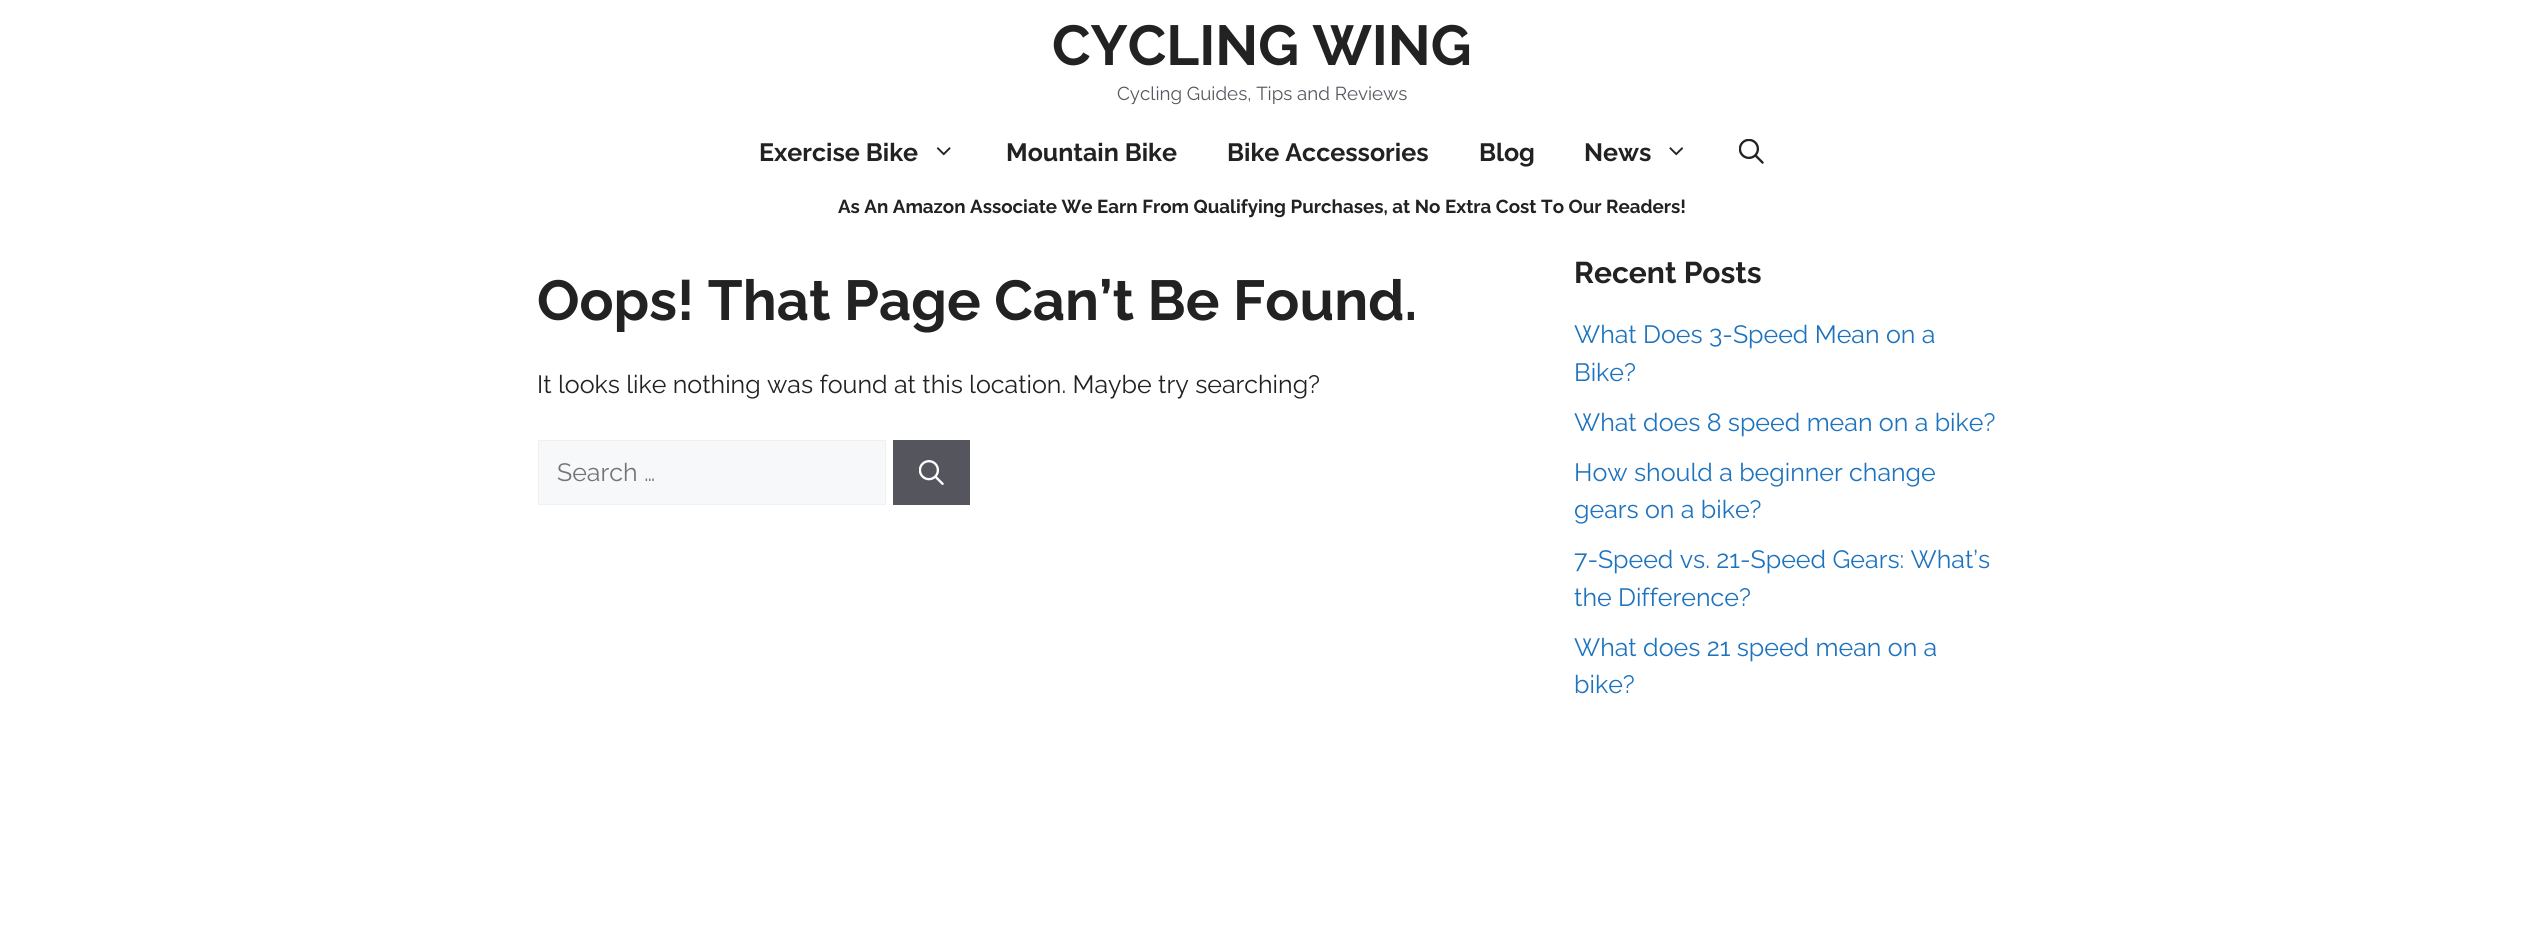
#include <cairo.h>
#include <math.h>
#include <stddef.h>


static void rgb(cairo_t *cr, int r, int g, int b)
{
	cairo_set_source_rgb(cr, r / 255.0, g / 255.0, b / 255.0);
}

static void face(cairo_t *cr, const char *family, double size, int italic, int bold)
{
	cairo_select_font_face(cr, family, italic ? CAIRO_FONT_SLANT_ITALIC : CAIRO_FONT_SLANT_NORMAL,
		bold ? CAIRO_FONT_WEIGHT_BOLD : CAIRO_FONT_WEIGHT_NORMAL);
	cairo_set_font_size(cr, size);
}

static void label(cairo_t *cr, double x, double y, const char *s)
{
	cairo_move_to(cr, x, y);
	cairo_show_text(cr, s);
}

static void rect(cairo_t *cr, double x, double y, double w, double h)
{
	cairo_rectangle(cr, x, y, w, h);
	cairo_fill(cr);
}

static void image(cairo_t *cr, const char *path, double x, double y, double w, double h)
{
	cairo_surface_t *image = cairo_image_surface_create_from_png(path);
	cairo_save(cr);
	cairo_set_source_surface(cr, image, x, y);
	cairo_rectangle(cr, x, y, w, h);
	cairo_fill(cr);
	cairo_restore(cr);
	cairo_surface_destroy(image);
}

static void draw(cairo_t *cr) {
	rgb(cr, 255, 255, 255);
	cairo_paint(cr);
	face(cr, "Raleway", 56.25, 0, 1);
	rgb(cr, 34, 34, 34);
	label(cr, 1052, 65, "CYCLING WING");
	face(cr, "Raleway", 18.75, 0, 0);
	rgb(cr, 87, 87, 96);
	label(cr, 1117, 100, "Cycling Guides, Tips and Reviews");
	face(cr, "Raleway", 25, 0, 1);
	rgb(cr, 34, 34, 34);
	label(cr, 759, 161, "Exercise Bike");
	image(cr, "image0.png", 936, 147, 15, 9);
	label(cr, 1006, 161, "Mountain Bike");
	label(cr, 1227, 161, "Bike Accessories");
	label(cr, 1479, 161, "Blog");
	label(cr, 1584, 161, "News");
	image(cr, "image1.png", 1669, 147, 15, 9);
	image(cr, "image2.png", 1739, 139, 25, 25);
	face(cr, "Raleway", 18.75, 0, 1);
	label(cr, 838, 213, "As An Amazon Associate We Earn From Qualifying Purchases, at No Extra Cost To Our Readers!");
	face(cr, "Raleway", 56.25, 0, 1);
	label(cr, 537, 320, "Oops! That Page Can’t Be Found.");
	face(cr, "Raleway", 25, 0, 0);
	label(cr, 537, 393, "It looks like nothing was found at this location. Maybe try searching?");
	rgb(cr, 247, 248, 249);
	cairo_rectangle(cr, 538.5, 440.5, 347, 64);
	cairo_fill_preserve(cr);
	rgb(cr, 240, 240, 240);
	cairo_set_line_width(cr, 1);
	cairo_stroke(cr);
	rgb(cr, 117, 117, 117);
	label(cr, 557, 481, "Search …");
	rgb(cr, 85, 85, 94);
	rect(cr, 893, 440, 77, 65);
	image(cr, "image3.png", 919, 460, 25, 25);
	face(cr, "Raleway", 30, 0, 1);
	rgb(cr, 34, 34, 34);
	label(cr, 1574, 283, "Recent Posts");
	face(cr, "Raleway", 25, 0, 0);
	rgb(cr, 30, 115, 190);
	label(cr, 1574, 343, "What Does 3-Speed Mean on a");
	label(cr, 1574, 381, "Bike?");
	label(cr, 1574, 431, "What does 8 speed mean on a bike?");
	label(cr, 1574, 481, "How should a beginner change");
	label(cr, 1574, 518, "gears on a bike?");
	label(cr, 1574, 568, "7-Speed vs. 21-Speed Gears: What’s");
	label(cr, 1574, 606, "the Difference?");
	label(cr, 1574, 656, "What does 21 speed mean on a");
	label(cr, 1574, 693, "bike?");
}

int main(void) {
	cairo_surface_t *surface = cairo_image_surface_create(CAIRO_FORMAT_RGB24, 2523, 938);
	cairo_t *cr = cairo_create(surface);
	cairo_font_options_t *options = cairo_font_options_create();
	cairo_font_options_set_hint_metrics(options, CAIRO_HINT_METRICS_OFF);
	cairo_font_options_set_hint_style(options, CAIRO_HINT_STYLE_NONE);
	cairo_set_font_options(cr, options);
	cairo_set_miter_limit(cr, 4);
	draw(cr);
	cairo_surface_write_to_png(surface, "render.png");
	cairo_font_options_destroy(options);
	cairo_destroy(cr);
	cairo_surface_destroy(surface);
	return 0;
}
